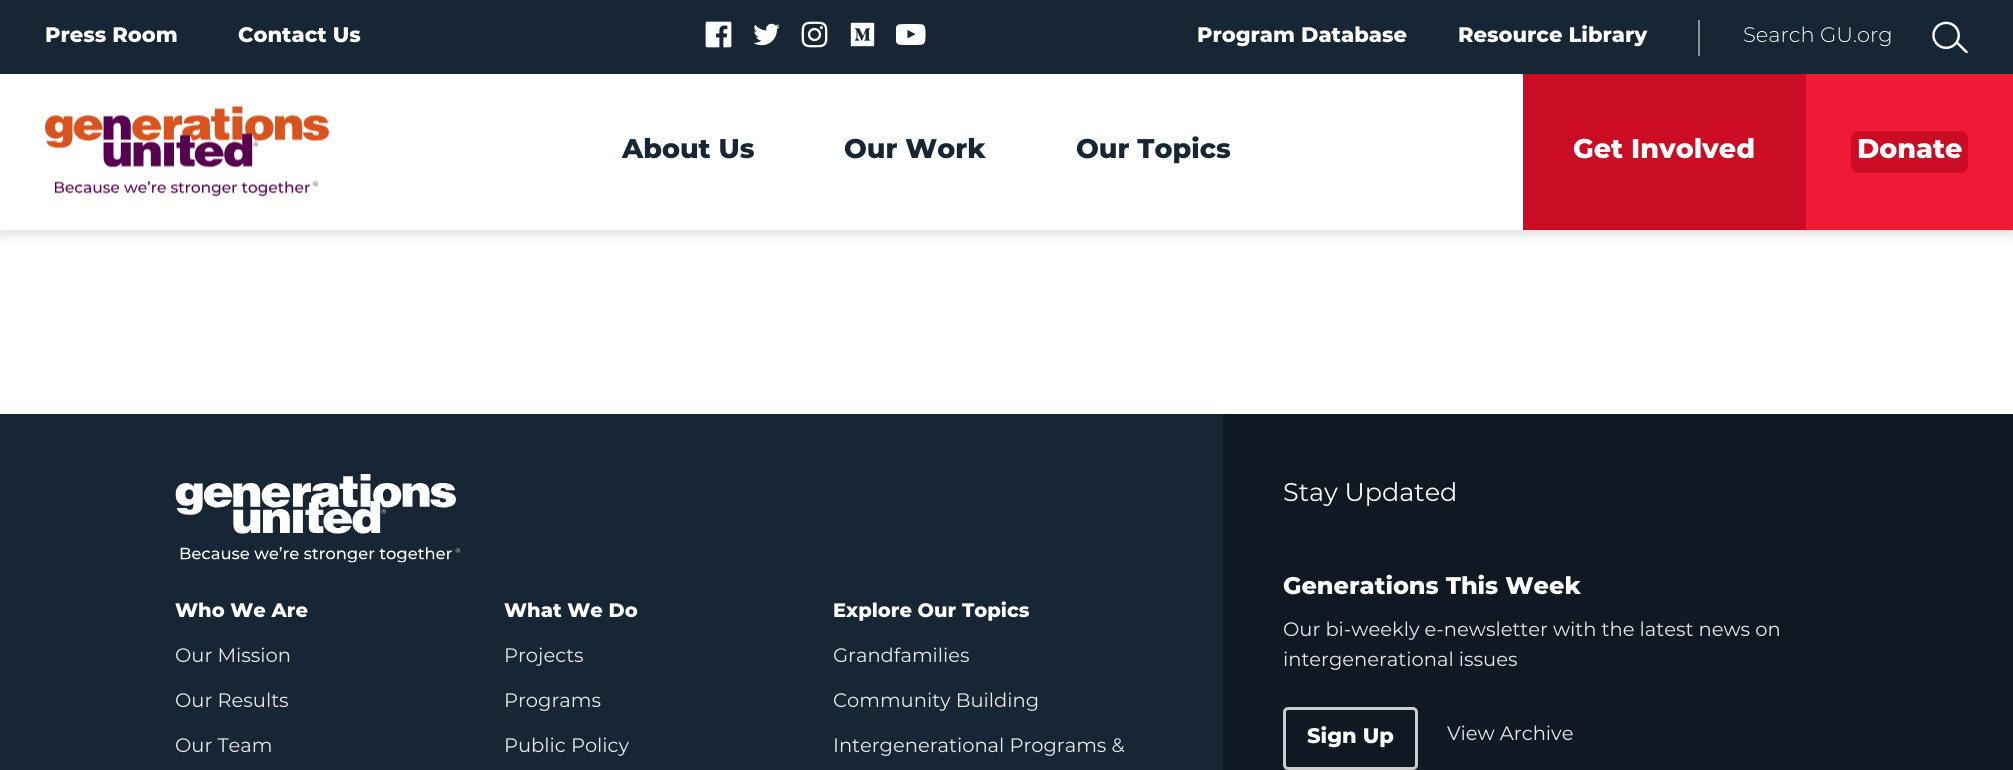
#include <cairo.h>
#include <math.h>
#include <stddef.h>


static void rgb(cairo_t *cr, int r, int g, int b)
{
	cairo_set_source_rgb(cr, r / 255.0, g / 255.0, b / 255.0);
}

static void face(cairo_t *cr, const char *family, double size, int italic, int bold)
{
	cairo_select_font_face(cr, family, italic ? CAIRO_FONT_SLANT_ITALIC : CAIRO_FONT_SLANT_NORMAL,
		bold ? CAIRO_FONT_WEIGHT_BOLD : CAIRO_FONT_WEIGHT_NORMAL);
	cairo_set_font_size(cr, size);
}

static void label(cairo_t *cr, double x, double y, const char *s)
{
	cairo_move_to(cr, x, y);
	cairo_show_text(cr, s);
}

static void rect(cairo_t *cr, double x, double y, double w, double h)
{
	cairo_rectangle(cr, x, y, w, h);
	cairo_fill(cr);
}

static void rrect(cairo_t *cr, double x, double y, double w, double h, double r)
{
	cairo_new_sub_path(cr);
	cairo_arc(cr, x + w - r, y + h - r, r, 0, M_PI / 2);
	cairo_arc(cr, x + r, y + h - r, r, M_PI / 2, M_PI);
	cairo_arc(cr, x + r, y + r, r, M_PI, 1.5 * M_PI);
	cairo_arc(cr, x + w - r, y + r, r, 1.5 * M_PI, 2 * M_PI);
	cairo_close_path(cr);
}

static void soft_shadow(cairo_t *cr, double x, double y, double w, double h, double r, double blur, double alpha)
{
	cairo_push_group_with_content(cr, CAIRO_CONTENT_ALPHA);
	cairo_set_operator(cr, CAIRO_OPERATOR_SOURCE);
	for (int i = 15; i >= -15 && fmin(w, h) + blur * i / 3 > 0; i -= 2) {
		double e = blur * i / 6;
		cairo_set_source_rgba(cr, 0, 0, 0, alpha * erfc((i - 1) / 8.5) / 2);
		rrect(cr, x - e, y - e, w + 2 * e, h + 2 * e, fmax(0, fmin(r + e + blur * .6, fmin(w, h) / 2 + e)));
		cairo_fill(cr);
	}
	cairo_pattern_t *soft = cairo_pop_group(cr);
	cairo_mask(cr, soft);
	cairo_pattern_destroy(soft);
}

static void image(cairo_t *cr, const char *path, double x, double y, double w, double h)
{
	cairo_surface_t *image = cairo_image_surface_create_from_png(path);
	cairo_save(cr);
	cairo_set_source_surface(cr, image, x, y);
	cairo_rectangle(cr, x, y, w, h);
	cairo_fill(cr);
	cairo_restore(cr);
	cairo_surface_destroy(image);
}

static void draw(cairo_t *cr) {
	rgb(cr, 255, 255, 255);
	cairo_paint(cr);
	rgb(cr, 0, 0, 0);
	soft_shadow(cr, 0, 8, 2013, 229, 0, 4, 0.1);
	rgb(cr, 23, 38, 53);
	rect(cr, 0, 0, 2013, 74);
	face(cr, "Montserrat ExtraBold", 21, 0, 0);
	rgb(cr, 255, 255, 255);
	label(cr, 45, 42, "Press Room");
	label(cr, 238, 42, "Contact Us");
	image(cr, "image0.png", 705, 21, 27, 27);
	image(cr, "image1.png", 753, 23, 27, 23);
	image(cr, "image2.png", 801, 21, 27, 27);
	image(cr, "image3.png", 850, 22, 25, 25);
	image(cr, "image4.png", 896, 23, 30, 23);
	label(cr, 1197, 42, "Program Database");
	label(cr, 1458, 42, "Resource Library");
	rgb(cr, 139, 147, 154);
	rect(cr, 1698, 20, 2, 36);
	face(cr, "Montserrat Light", 21, 0, 0);
	rgb(cr, 255, 255, 255);
	label(cr, 1743, 42, "Search GU.org");
	image(cr, "image5.png", 1932, 21, 36, 32);
	rect(cr, 0, 74, 1523, 156);
	image(cr, "image6.png", 45, 106, 284, 91);
	face(cr, "Montserrat ExtraBold", 27, 0, 0);
	rgb(cr, 23, 38, 53);
	label(cr, 622, 158, "About Us");
	label(cr, 844, 158, "Our Work");
	label(cr, 1076, 158, "Our Topics");
	rgb(cr, 202, 13, 36);
	rect(cr, 1523, 74, 283, 156);
	rgb(cr, 255, 255, 255);
	label(cr, 1573, 158, "Get Involved");
	rgb(cr, 240, 26, 52);
	rect(cr, 1806, 74, 207, 156);
	rgb(cr, 202, 13, 36);
	rrect(cr, 1851, 131, 117, 42, 8);
	cairo_fill(cr);
	rgb(cr, 255, 255, 255);
	label(cr, 1857, 158, "Donate");
	rgb(cr, 23, 38, 53);
	rect(cr, 0, 414, 1223, 356);
	rgb(cr, 15, 25, 35);
	rect(cr, 1223, 414, 790, 356);
	face(cr, "Montserrat", 25.5, 0, 0);
	rgb(cr, 255, 255, 255);
	label(cr, 1283, 501, "Stay Updated");
	face(cr, "Montserrat ExtraBold", 24, 0, 0);
	label(cr, 1283, 594, "Generations This Week");
	face(cr, "Montserrat", 19.5, 0, 0);
	rgb(cr, 232, 233, 235);
	label(cr, 1283, 636, "Our bi-weekly e-newsletter with the latest news on");
	label(cr, 1283, 666, "intergenerational issues");
	rrect(cr, 1284.5, 708.5, 132, 60, 3.5);
	rgb(cr, 204, 204, 204);
	cairo_set_line_width(cr, 3);
	cairo_stroke(cr);
	face(cr, "Montserrat ExtraBold", 21, 0, 0);
	rgb(cr, 255, 255, 255);
	label(cr, 1307, 743, "Sign Up");
	face(cr, "Montserrat", 19.5, 0, 0);
	rgb(cr, 232, 233, 235);
	label(cr, 1447, 740, "View Archive");
	image(cr, "image7.png", 175, 474, 286, 89);
	face(cr, "Montserrat ExtraBold", 19.5, 0, 0);
	rgb(cr, 255, 255, 255);
	label(cr, 175, 617, "Who We Are");
	face(cr, "Montserrat", 19.5, 0, 0);
	rgb(cr, 232, 233, 235);
	label(cr, 175, 662, "Our Mission");
	label(cr, 175, 707, "Our Results");
	label(cr, 175, 752, "Our Team");
	face(cr, "Montserrat ExtraBold", 19.5, 0, 0);
	rgb(cr, 255, 255, 255);
	label(cr, 504, 617, "What We Do");
	face(cr, "Montserrat", 19.5, 0, 0);
	rgb(cr, 232, 233, 235);
	label(cr, 504, 662, "Projects");
	label(cr, 504, 707, "Programs");
	label(cr, 504, 752, "Public Policy");
	face(cr, "Montserrat ExtraBold", 19.5, 0, 0);
	rgb(cr, 255, 255, 255);
	label(cr, 833, 617, "Explore Our Topics");
	face(cr, "Montserrat", 19.5, 0, 0);
	rgb(cr, 232, 233, 235);
	label(cr, 833, 662, "Grandfamilies");
	label(cr, 833, 707, "Community Building");
	label(cr, 833, 752, "Intergenerational Programs &");
}

int main(void) {
	cairo_surface_t *surface = cairo_image_surface_create(CAIRO_FORMAT_RGB24, 2013, 770);
	cairo_t *cr = cairo_create(surface);
	cairo_font_options_t *options = cairo_font_options_create();
	cairo_font_options_set_hint_metrics(options, CAIRO_HINT_METRICS_OFF);
	cairo_font_options_set_hint_style(options, CAIRO_HINT_STYLE_NONE);
	cairo_set_font_options(cr, options);
	cairo_set_miter_limit(cr, 4);
	draw(cr);
	cairo_surface_write_to_png(surface, "render.png");
	cairo_font_options_destroy(options);
	cairo_destroy(cr);
	cairo_surface_destroy(surface);
	return 0;
}
